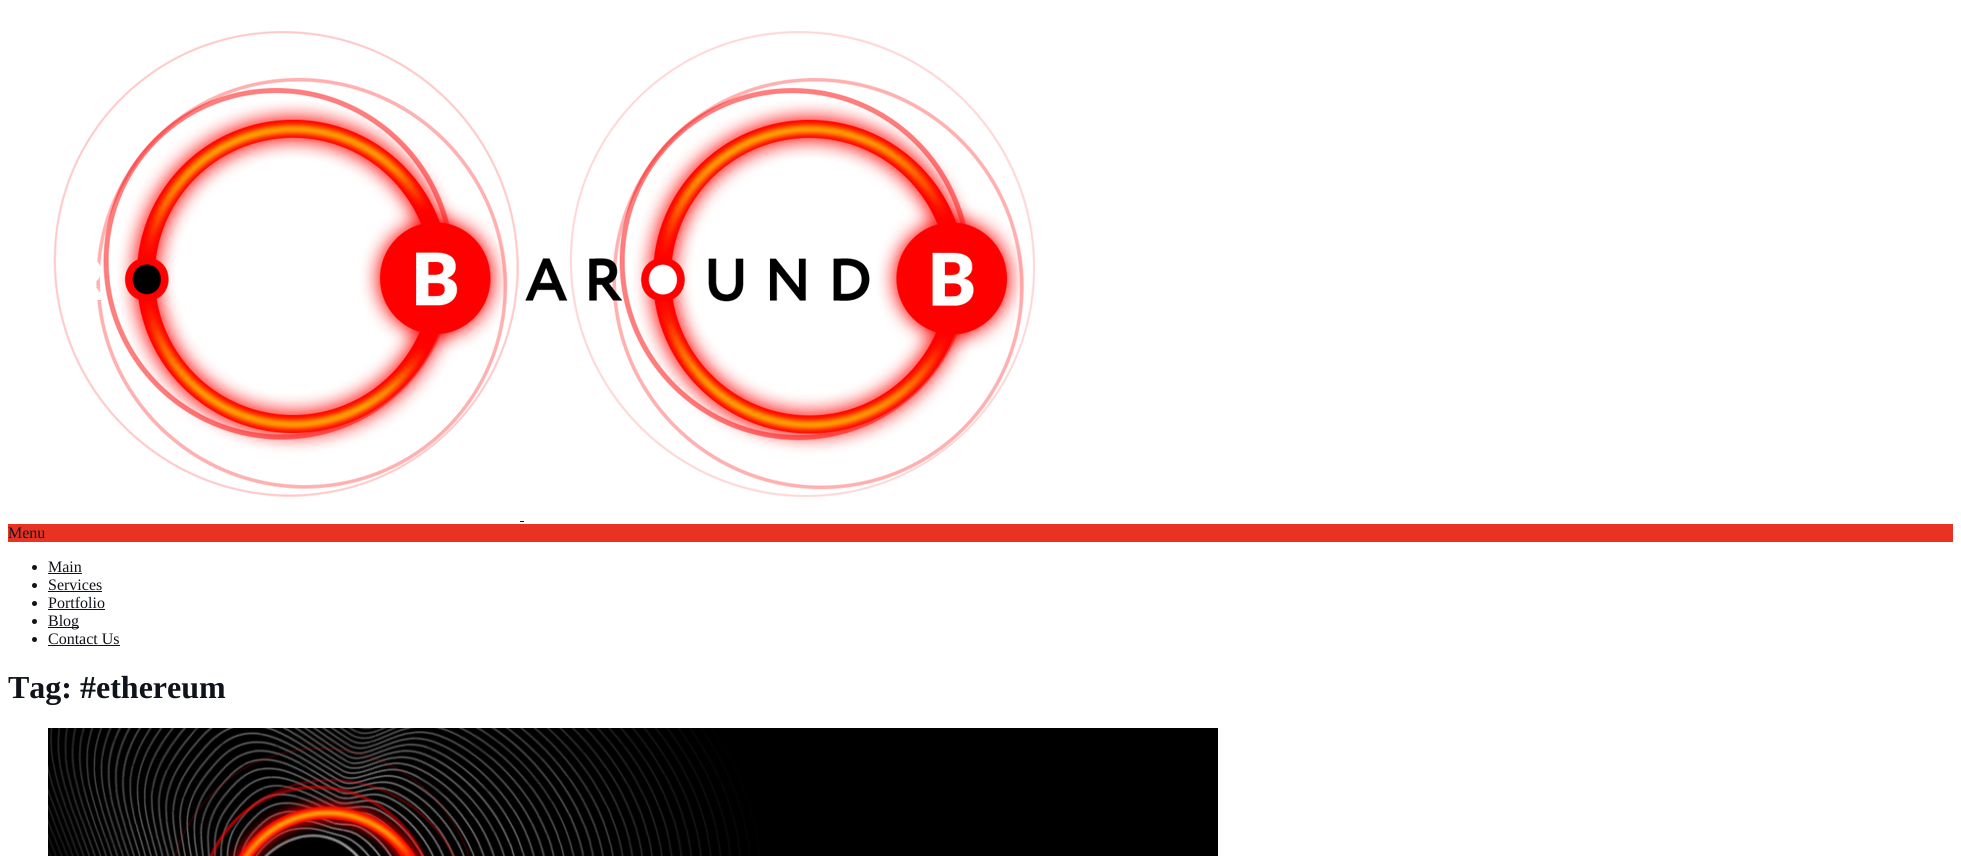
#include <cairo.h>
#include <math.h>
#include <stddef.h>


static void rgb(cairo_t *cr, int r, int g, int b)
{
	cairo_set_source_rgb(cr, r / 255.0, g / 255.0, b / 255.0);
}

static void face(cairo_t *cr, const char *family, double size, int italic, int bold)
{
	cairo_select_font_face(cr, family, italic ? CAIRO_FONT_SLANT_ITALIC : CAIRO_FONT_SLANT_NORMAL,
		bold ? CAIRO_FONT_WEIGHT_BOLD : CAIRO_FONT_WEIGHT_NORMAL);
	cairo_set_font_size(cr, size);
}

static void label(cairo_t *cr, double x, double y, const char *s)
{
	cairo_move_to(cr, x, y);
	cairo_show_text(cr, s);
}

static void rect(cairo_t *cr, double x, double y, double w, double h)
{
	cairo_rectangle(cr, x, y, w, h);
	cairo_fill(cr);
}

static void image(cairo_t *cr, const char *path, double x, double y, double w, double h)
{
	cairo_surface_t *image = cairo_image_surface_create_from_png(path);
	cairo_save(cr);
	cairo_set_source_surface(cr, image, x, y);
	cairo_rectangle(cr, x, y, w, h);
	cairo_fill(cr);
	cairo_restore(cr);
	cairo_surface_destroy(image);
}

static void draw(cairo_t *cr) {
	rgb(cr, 255, 255, 255);
	cairo_paint(cr);
	image(cr, "image0.png", 53, 31, 466, 466);
	image(cr, "image1.png", 525, 31, 510, 466);
	rgb(cr, 16, 19, 26);
	rect(cr, 520, 521, 4, 1);
	rgb(cr, 234, 50, 35);
	rect(cr, 8, 524, 1945, 18);
	face(cr, "Liberation Serif", 16, 0, 0);
	rgb(cr, 16, 19, 26);
	label(cr, 8, 538, "Menu");
	cairo_new_path(cr);
	cairo_arc(cr, 34.5, 567.5, 2.5, 0, 2 * M_PI);
	cairo_fill(cr);
	label(cr, 48, 572, "Main");
	rect(cr, 48, 573, 34, 1);
	cairo_new_path(cr);
	cairo_arc(cr, 34.5, 585.5, 2.5, 0, 2 * M_PI);
	cairo_fill(cr);
	label(cr, 48, 590, "Services");
	rect(cr, 48, 591, 54, 1);
	cairo_new_path(cr);
	cairo_arc(cr, 34.5, 603.5, 2.5, 0, 2 * M_PI);
	cairo_fill(cr);
	label(cr, 48, 608, "Portfolio");
	rect(cr, 48, 609, 57, 1);
	cairo_new_path(cr);
	cairo_arc(cr, 34.5, 621.5, 2.5, 0, 2 * M_PI);
	cairo_fill(cr);
	rect(cr, 48, 627, 31, 1);
	label(cr, 48, 626, "Blog");
	cairo_new_path(cr);
	cairo_arc(cr, 34.5, 639.5, 2.5, 0, 2 * M_PI);
	cairo_fill(cr);
	label(cr, 48, 644, "Contact Us");
	rect(cr, 48, 645, 72, 1);
	face(cr, "Liberation Serif", 32, 0, 1);
	label(cr, 8, 698, "Tag: #ethereum");
	image(cr, "image2.png", 48, 728, 1170, 128);
}

int main(void) {
	cairo_surface_t *surface = cairo_image_surface_create(CAIRO_FORMAT_RGB24, 1961, 856);
	cairo_t *cr = cairo_create(surface);
	cairo_font_options_t *options = cairo_font_options_create();
	cairo_font_options_set_hint_metrics(options, CAIRO_HINT_METRICS_OFF);
	cairo_font_options_set_hint_style(options, CAIRO_HINT_STYLE_NONE);
	cairo_set_font_options(cr, options);
	cairo_set_miter_limit(cr, 4);
	draw(cr);
	cairo_surface_write_to_png(surface, "render.png");
	cairo_font_options_destroy(options);
	cairo_destroy(cr);
	cairo_surface_destroy(surface);
	return 0;
}
